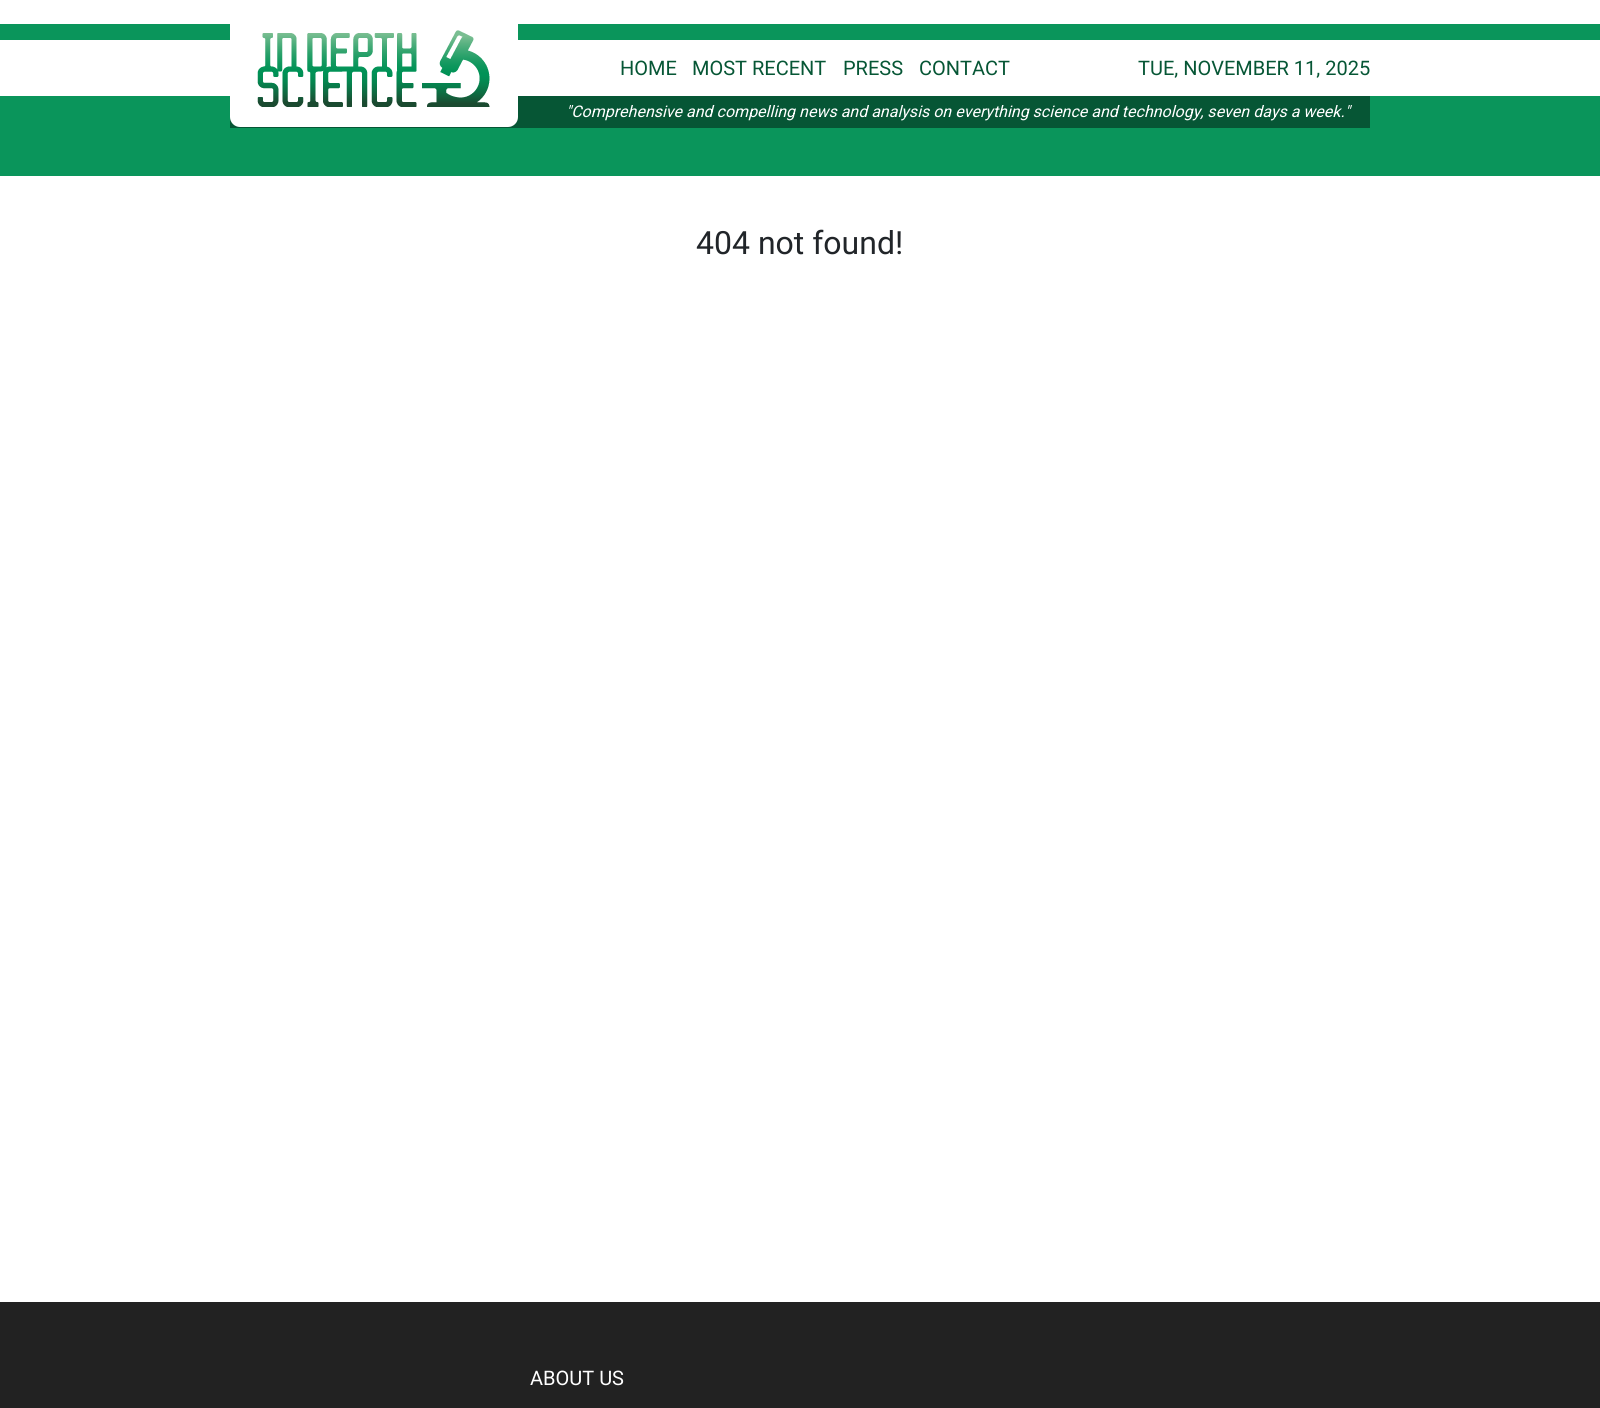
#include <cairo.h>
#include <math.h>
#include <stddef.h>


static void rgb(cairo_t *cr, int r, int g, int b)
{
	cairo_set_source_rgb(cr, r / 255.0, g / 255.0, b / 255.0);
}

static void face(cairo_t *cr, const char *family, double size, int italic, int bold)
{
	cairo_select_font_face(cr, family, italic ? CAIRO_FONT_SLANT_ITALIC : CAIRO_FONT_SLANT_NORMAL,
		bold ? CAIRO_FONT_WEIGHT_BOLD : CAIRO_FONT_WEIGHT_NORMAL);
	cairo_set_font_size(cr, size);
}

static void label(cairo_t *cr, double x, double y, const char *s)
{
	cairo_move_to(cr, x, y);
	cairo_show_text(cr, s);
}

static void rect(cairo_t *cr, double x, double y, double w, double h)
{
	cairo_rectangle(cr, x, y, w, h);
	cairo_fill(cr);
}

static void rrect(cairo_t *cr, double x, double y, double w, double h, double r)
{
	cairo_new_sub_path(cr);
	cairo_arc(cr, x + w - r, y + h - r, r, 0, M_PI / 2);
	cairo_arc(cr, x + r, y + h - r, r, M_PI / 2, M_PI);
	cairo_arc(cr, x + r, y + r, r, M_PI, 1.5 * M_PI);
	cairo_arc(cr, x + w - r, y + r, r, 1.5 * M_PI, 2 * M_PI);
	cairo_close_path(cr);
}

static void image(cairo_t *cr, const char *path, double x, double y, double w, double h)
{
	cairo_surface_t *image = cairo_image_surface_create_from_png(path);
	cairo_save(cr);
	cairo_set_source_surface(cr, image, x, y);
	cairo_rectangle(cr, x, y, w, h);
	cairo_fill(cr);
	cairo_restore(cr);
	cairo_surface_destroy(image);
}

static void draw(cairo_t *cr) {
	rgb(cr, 255, 255, 255);
	cairo_paint(cr);
	rgb(cr, 10, 149, 91);
	rect(cr, 0, 24, 1600, 152);
	rgb(cr, 255, 255, 255);
	rect(cr, 0, 40, 1600, 56);
	rgb(cr, 6, 86, 53);
	rect(cr, 230, 96, 1140, 32);
	rgb(cr, 255, 255, 255);
	rrect(cr, 230, 10, 288, 117, 10);
	cairo_fill(cr);
	image(cr, "image0.png", 257, 30, 233, 77);
	face(cr, "Roboto", 20, 0, 0);
	rgb(cr, 6, 86, 53);
	label(cr, 620, 75, "HOME");
	label(cr, 692, 75, "MOST RECENT");
	label(cr, 843, 75, "PRESS");
	label(cr, 919, 75, "CONTACT");
	label(cr, 1138, 75, "TUE, NOVEMBER 11, 2025");
	face(cr, "Roboto", 16, 1, 0);
	rgb(cr, 255, 255, 255);
	label(cr, 566, 117, "\"Comprehensive and compelling news and analysis on everything science and technology, seven days a week.\"");
	face(cr, "Roboto", 32, 0, 0);
	rgb(cr, 33, 37, 41);
	label(cr, 696, 254, "404 not found!");
	rgb(cr, 34, 34, 34);
	rect(cr, 0, 1302, 1600, 106);
	face(cr, "Roboto", 20, 0, 0);
	rgb(cr, 255, 255, 255);
	label(cr, 530, 1385, "ABOUT US");
}

int main(void) {
	cairo_surface_t *surface = cairo_image_surface_create(CAIRO_FORMAT_RGB24, 1600, 1408);
	cairo_t *cr = cairo_create(surface);
	cairo_font_options_t *options = cairo_font_options_create();
	cairo_font_options_set_hint_metrics(options, CAIRO_HINT_METRICS_OFF);
	cairo_font_options_set_hint_style(options, CAIRO_HINT_STYLE_NONE);
	cairo_set_font_options(cr, options);
	cairo_set_miter_limit(cr, 4);
	draw(cr);
	cairo_surface_write_to_png(surface, "render.png");
	cairo_font_options_destroy(options);
	cairo_destroy(cr);
	cairo_surface_destroy(surface);
	return 0;
}
